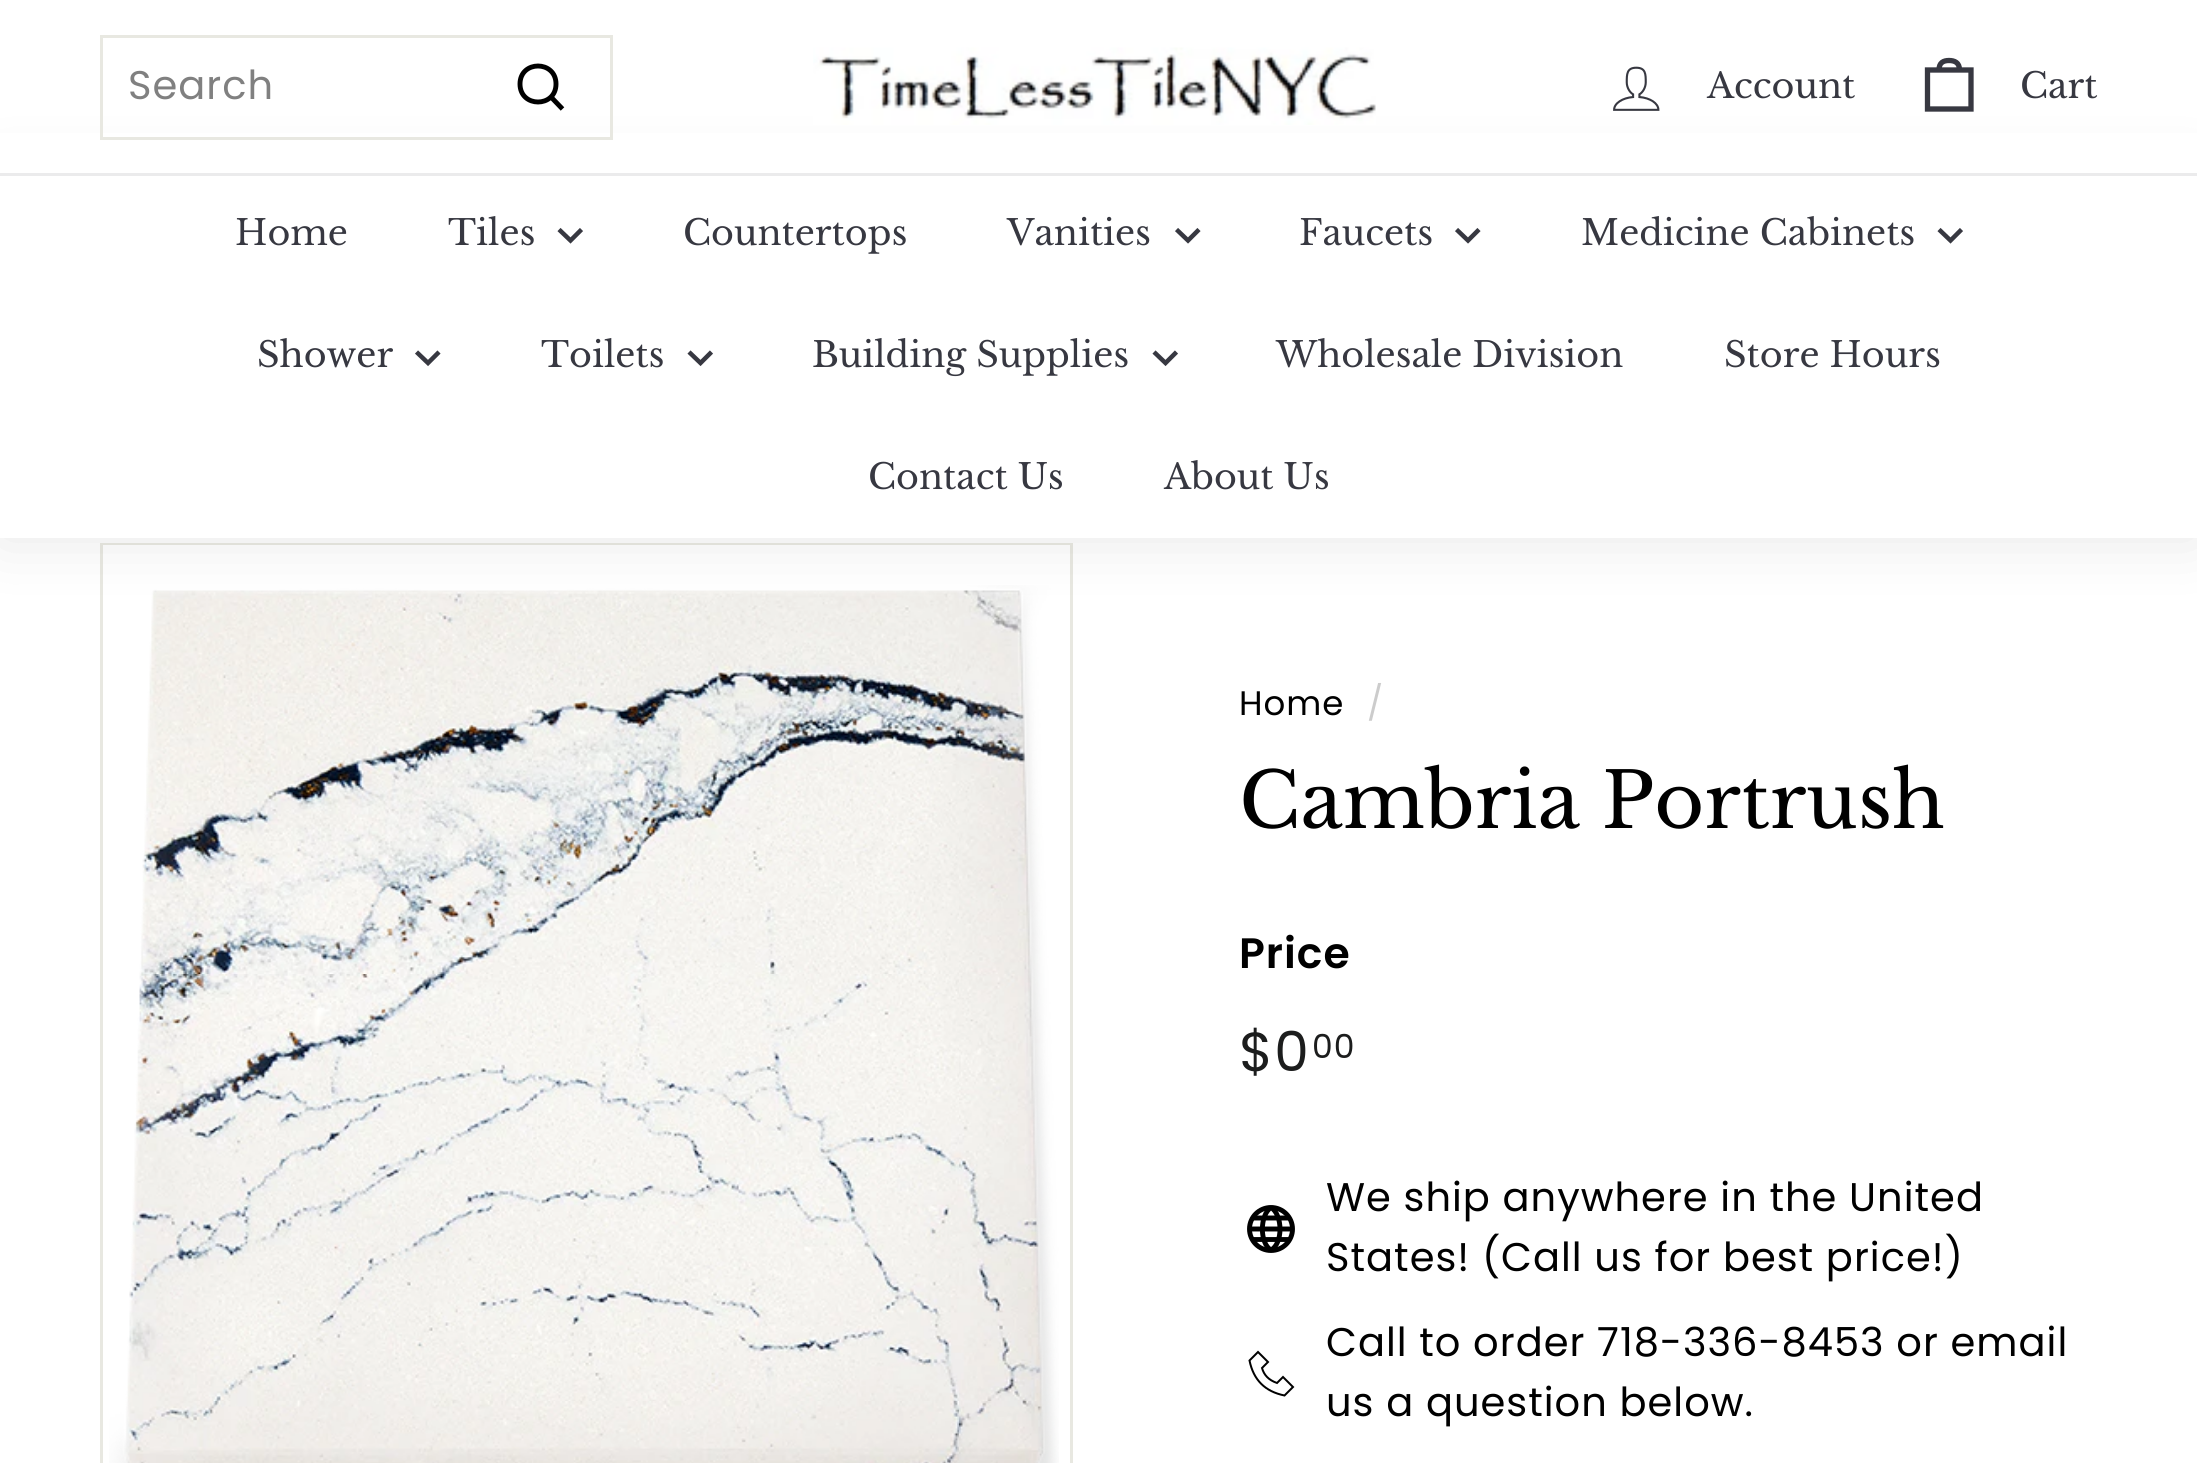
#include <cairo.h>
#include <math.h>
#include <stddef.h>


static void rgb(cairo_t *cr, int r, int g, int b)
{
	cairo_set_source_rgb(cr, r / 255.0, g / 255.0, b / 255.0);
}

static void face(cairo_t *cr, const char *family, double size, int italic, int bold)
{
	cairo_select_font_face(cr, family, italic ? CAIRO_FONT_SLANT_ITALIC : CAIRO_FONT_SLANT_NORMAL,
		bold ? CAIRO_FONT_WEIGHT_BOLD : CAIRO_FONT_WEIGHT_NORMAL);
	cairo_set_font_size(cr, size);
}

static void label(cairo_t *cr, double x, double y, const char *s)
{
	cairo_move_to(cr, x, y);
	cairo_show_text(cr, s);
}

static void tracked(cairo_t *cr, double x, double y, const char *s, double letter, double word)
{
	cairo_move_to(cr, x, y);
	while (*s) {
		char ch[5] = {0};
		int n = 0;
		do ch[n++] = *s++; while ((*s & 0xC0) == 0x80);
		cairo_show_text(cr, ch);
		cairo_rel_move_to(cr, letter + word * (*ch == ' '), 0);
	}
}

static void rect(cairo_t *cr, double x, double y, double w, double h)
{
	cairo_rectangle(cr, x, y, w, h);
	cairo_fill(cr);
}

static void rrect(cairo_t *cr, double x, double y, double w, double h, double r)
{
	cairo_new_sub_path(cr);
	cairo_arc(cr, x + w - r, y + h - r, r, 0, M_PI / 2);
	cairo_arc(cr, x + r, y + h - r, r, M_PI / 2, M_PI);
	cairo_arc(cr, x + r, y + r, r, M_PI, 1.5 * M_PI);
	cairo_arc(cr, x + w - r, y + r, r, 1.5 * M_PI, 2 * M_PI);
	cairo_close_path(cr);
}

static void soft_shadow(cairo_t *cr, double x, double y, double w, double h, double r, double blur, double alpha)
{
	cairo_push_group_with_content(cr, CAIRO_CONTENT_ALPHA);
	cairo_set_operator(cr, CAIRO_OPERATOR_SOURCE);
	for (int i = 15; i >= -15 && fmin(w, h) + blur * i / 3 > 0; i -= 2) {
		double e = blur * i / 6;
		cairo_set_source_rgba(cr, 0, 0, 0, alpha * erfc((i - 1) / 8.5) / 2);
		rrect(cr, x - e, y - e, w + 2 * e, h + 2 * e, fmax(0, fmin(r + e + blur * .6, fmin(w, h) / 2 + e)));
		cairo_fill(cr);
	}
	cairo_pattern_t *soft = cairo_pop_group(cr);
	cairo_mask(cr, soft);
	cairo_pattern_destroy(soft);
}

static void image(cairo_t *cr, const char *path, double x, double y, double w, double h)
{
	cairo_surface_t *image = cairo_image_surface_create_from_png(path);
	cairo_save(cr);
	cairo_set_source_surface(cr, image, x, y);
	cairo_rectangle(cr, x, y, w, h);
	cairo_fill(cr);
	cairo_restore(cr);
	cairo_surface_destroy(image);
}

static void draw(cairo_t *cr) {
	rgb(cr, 255, 255, 255);
	cairo_paint(cr);
	cairo_rectangle(cr, 101.5, 544.5, 970, 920);
	rgb(cr, 232, 232, 225);
	cairo_set_line_width(cr, 3);
	cairo_stroke(cr);
	rgb(cr, 255, 255, 255);
	rect(cr, 103, 545, 967, 1);
	image(cr, "image2.png", 109, 585, 950, 878);
	rgb(cr, 0, 0, 0);
	soft_shadow(cr, 0, 173, 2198, 365, 0, 31, 0.1);
	rgb(cr, 255, 255, 255);
	rect(cr, 0, 133, 2197, 40);
	cairo_rectangle(cr, 101.5, 36.5, 510, 102);
	rgb(cr, 232, 232, 225);
	cairo_stroke(cr);
	face(cr, "Poppins", 40, 0, 0);
	rgb(cr, 128, 128, 128);
	tracked(cr, 128, 99, "Search", 1, 0);
	cairo_new_path(cr);
	cairo_move_to(cr, 556, 84);
	cairo_curve_to(cr, 556, 108, 520, 108, 520, 84);
	cairo_curve_to(cr, 520, 60, 556, 60, 556, 84);
	cairo_close_path(cr);
	cairo_move_to(cr, 562.5, 109);
	cairo_line_to(cr, 551, 97);
	rgb(cr, 0, 0, 0);
	cairo_set_line_width(cr, 4.9);
	cairo_stroke(cr);
	image(cr, "image0.png", 813, 47, 563, 78);
	image(cr, "image1.png", 1613, 66, 47, 45);
	face(cr, "Libre Baskerville", 35, 0, 0);
	rgb(cr, 55, 56, 65);
	label(cr, 1707, 98, "Account");
	cairo_new_path(cr);
	cairo_move_to(cr, 1939, 70);
	cairo_curve_to(cr, 1939, 62.5, 1943.5, 60.5, 1949, 60.5);
	cairo_curve_to(cr, 1954.5, 60.5, 1959.5, 62.5, 1959.5, 70);
	cairo_move_to(cr, 1927.5, 70);
	cairo_line_to(cr, 1971, 70);
	cairo_line_to(cr, 1971, 109);
	cairo_line_to(cr, 1927.5, 109);
	cairo_close_path(cr);
	cairo_set_line_width(cr, 5.3);
	cairo_stroke(cr);
	label(cr, 2020, 98, "Cart");
	rgb(cr, 255, 255, 255);
	rect(cr, 0, 176, 2197, 362);
	rgb(cr, 235, 235, 236);
	rect(cr, 0, 173, 2197, 3);
	rgb(cr, 55, 56, 65);
	label(cr, 235, 245, "Home");
	label(cr, 448, 245, "Tiles");
	cairo_new_path(cr);
	cairo_move_to(cr, 559, 229.5);
	cairo_line_to(cr, 570.5, 240.5);
	cairo_line_to(cr, 581.5, 229.5);
	cairo_set_line_width(cr, 4.5);
	cairo_stroke(cr);
	label(cr, 683, 245, "Countertops");
	label(cr, 1007, 245, "Vanities");
	cairo_new_path(cr);
	cairo_move_to(cr, 1176.5, 229.5);
	cairo_line_to(cr, 1188, 240.5);
	cairo_line_to(cr, 1199, 229.5);
	cairo_stroke(cr);
	label(cr, 1299, 245, "Faucets");
	cairo_new_path(cr);
	cairo_move_to(cr, 1456.5, 229.5);
	cairo_line_to(cr, 1468, 240.5);
	cairo_line_to(cr, 1479, 229.5);
	cairo_stroke(cr);
	label(cr, 1581, 245, "Medicine Cabinets");
	cairo_new_path(cr);
	cairo_move_to(cr, 1939, 229.5);
	cairo_line_to(cr, 1950.5, 240.5);
	cairo_line_to(cr, 1961.5, 229.5);
	cairo_stroke(cr);
	label(cr, 257, 367, "Shower");
	cairo_new_path(cr);
	cairo_move_to(cr, 416.5, 352);
	cairo_line_to(cr, 428, 363);
	cairo_line_to(cr, 439, 352);
	cairo_stroke(cr);
	label(cr, 541, 367, "Toilets");
	cairo_new_path(cr);
	cairo_move_to(cr, 689, 352);
	cairo_line_to(cr, 700.5, 363);
	cairo_line_to(cr, 711.5, 352);
	cairo_stroke(cr);
	label(cr, 812, 367, "Building Supplies");
	cairo_new_path(cr);
	cairo_move_to(cr, 1154, 352);
	cairo_line_to(cr, 1165.5, 363);
	cairo_line_to(cr, 1176.5, 352);
	cairo_stroke(cr);
	label(cr, 1276, 367, "Wholesale Division");
	label(cr, 1724, 367, "Store Hours");
	label(cr, 868, 489, "Contact Us");
	label(cr, 1164, 489, "About Us");
	face(cr, "Poppins", 34, 0, 0);
	rgb(cr, 0, 0, 0);
	tracked(cr, 1239, 715, "Home", 1, 0);
	rgb(cr, 204, 204, 204);
	tracked(cr, 1367, 715, "/", 1, 0);
	face(cr, "Libre Baskerville", 76.5, 0, 0);
	rgb(cr, 0, 0, 0);
	label(cr, 1239, 828, "Cambria Portrush");
	face(cr, "Poppins SemiBold", 42.5, 0, 0);
	tracked(cr, 1239, 968, "Price", 1, 0);
	face(cr, "Poppins", 55, 0, 0);
	rgb(cr, 28, 29, 29);
	tracked(cr, 1239, 1071, "$0", 1, 0);
	face(cr, "Poppins", 33, 0, 0);
	tracked(cr, 1312, 1058, "00", 1, 0);
	cairo_new_path(cr);
	cairo_arc(cr, 1271, 1229, 21.5, 0, 2 * M_PI);
	rgb(cr, 0, 0, 0);
	cairo_set_line_width(cr, 4.9);
	cairo_stroke(cr);
	cairo_new_path(cr);
	cairo_move_to(cr, 1252.5, 1218);
	cairo_line_to(cr, 1290, 1218);
	cairo_move_to(cr, 1250, 1229);
	cairo_line_to(cr, 1292.5, 1229);
	cairo_move_to(cr, 1252.5, 1239.5);
	cairo_line_to(cr, 1290, 1239.5);
	cairo_move_to(cr, 1271, 1207.5);
	cairo_curve_to(cr, 1259.5, 1215, 1259.5, 1243.5, 1271, 1250);
	cairo_move_to(cr, 1271, 1207.5);
	cairo_curve_to(cr, 1283, 1215, 1283, 1243.5, 1271, 1250);
	cairo_stroke(cr);
	face(cr, "Poppins", 40, 0, 0);
	tracked(cr, 1326, 1211, "We ship anywhere in the United", 1, 0);
	tracked(cr, 1326, 1271, "States! (Call us for best price!)", 1, 0);
	cairo_new_path(cr);
	cairo_move_to(cr, 1258, 1352);
	cairo_line_to(cr, 1268, 1362);
	cairo_line_to(cr, 1262, 1368);
	cairo_curve_to(cr, 1264, 1375, 1268.5, 1380, 1277, 1383);
	cairo_line_to(cr, 1283, 1377);
	cairo_line_to(cr, 1293, 1387);
	cairo_line_to(cr, 1284.5, 1395.5);
	cairo_curve_to(cr, 1265, 1391.5, 1253.5, 1380, 1249.5, 1360.5);
	cairo_close_path(cr);
	cairo_set_line_width(cr, 2);
	cairo_stroke(cr);
	tracked(cr, 1326, 1356, "Call to order 718-336-8453 or email", 1, 0);
	tracked(cr, 1326, 1416, "us a question below.", 1, 0);
}

int main(void) {
	cairo_surface_t *surface = cairo_image_surface_create(CAIRO_FORMAT_RGB24, 2197, 1463);
	cairo_t *cr = cairo_create(surface);
	cairo_font_options_t *options = cairo_font_options_create();
	cairo_font_options_set_hint_metrics(options, CAIRO_HINT_METRICS_OFF);
	cairo_font_options_set_hint_style(options, CAIRO_HINT_STYLE_NONE);
	cairo_set_font_options(cr, options);
	cairo_set_miter_limit(cr, 4);
	draw(cr);
	cairo_surface_write_to_png(surface, "render.png");
	cairo_font_options_destroy(options);
	cairo_destroy(cr);
	cairo_surface_destroy(surface);
	return 0;
}
